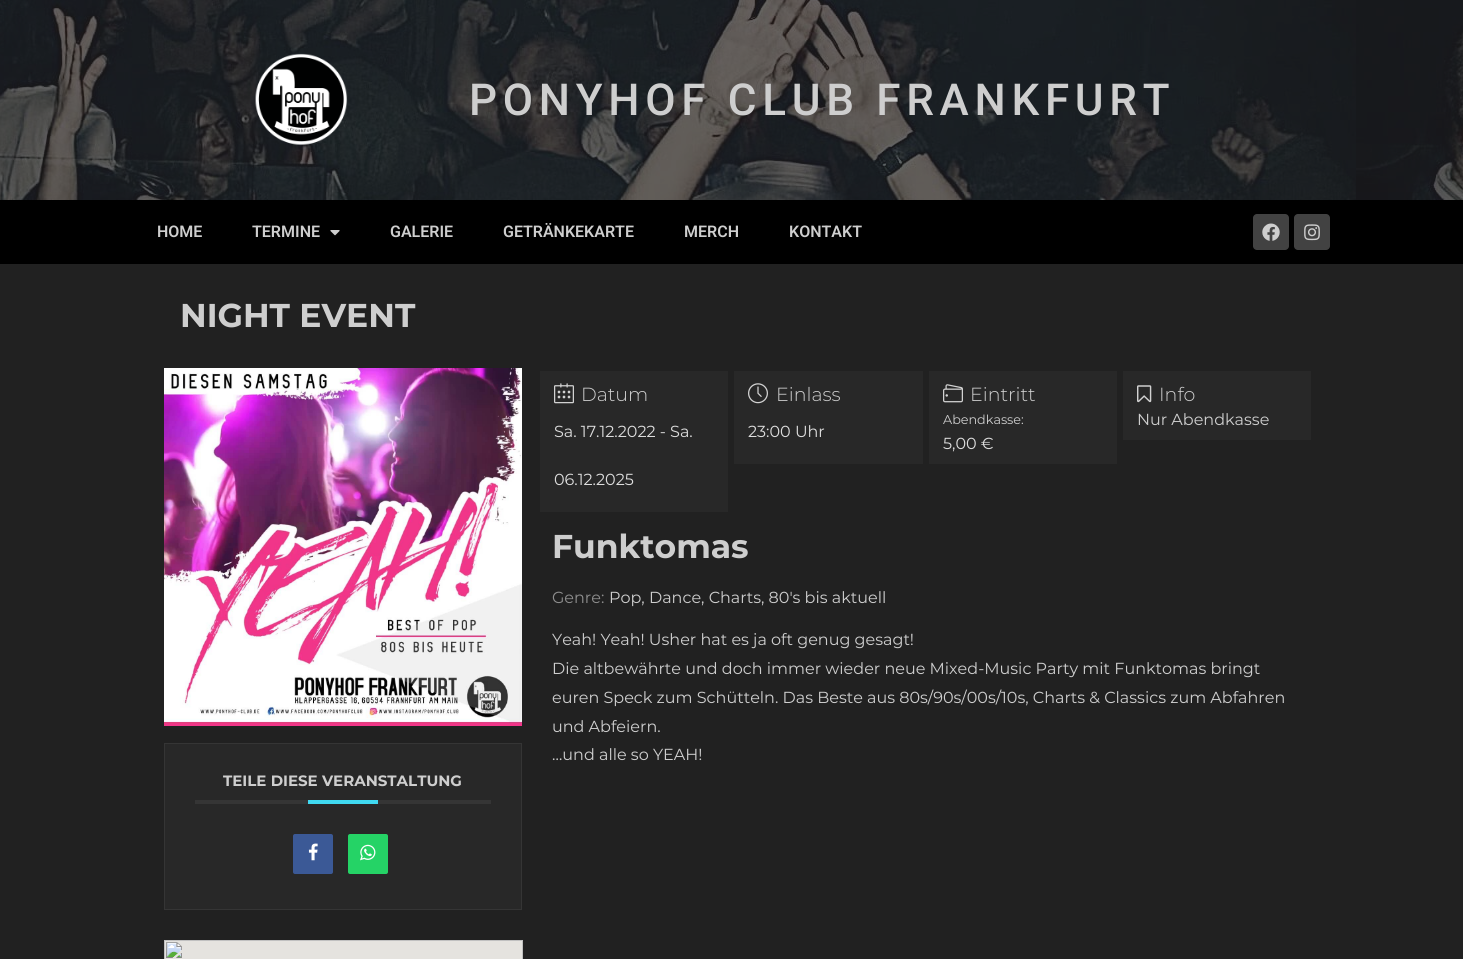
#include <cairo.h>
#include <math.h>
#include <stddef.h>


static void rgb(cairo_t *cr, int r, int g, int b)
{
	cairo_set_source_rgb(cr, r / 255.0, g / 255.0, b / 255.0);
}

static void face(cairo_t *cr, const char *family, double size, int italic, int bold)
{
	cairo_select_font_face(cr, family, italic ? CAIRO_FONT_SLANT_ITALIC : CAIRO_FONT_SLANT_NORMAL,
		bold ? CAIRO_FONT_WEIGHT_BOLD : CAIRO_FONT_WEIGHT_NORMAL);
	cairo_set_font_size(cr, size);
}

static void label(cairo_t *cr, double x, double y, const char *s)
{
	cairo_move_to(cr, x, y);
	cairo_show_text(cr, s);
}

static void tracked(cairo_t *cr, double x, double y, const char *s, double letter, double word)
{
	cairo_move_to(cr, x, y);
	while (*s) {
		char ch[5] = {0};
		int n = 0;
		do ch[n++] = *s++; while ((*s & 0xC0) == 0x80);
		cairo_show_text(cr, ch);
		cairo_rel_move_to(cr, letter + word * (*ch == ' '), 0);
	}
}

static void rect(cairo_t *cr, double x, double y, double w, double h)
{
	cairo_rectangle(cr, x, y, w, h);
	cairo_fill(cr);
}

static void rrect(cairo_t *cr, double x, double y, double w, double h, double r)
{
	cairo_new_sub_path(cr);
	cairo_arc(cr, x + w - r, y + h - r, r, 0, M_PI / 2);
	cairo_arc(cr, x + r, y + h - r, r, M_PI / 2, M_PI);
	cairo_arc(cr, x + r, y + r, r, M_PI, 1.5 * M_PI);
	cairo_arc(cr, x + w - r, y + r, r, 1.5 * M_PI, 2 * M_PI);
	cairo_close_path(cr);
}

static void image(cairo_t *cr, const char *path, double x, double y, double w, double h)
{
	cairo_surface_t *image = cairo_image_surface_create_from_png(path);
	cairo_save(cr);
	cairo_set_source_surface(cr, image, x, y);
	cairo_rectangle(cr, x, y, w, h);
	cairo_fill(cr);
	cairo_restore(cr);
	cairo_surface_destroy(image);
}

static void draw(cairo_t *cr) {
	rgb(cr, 33, 33, 33);
	cairo_paint(cr);
	image(cr, "image0.png", 0, 0, 1463, 200);
	image(cr, "image1.png", 255, 53, 93, 92);
	face(cr, "Roboto Medium", 44, 0, 0);
	rgb(cr, 206, 206, 206);
	tracked(cr, 469, 115, "PONYHOF CLUB FRANKFURT", 5.7, 0);
	rgb(cr, 0, 0, 0);
	rect(cr, 0, 200, 1463, 64);
	face(cr, "Roboto SemiBold", 16, 0, 0);
	rgb(cr, 206, 206, 206);
	label(cr, 157, 237, "HOME");
	label(cr, 252, 237, "TERMINE");
	image(cr, "image2.png", 330, 230, 10, 6);
	label(cr, 390, 237, "GALERIE");
	label(cr, 503, 237, "GETRÄNKEKARTE");
	label(cr, 684, 237, "MERCH");
	label(cr, 789, 237, "KONTAKT");
	rgb(cr, 66, 66, 66);
	rrect(cr, 1253, 214, 36, 36, 4);
	cairo_fill(cr);
	image(cr, "image3.png", 1262, 223, 18, 18);
	rrect(cr, 1294, 214, 36, 36, 4);
	cairo_fill(cr);
	image(cr, "image4.png", 1304, 224, 16, 17);
	face(cr, "Montserrat", 33, 0, 1);
	rgb(cr, 206, 206, 206);
	label(cr, 180, 327, "NIGHT EVENT");
	rgb(cr, 40, 40, 40);
	rect(cr, 540, 371, 188, 141);
	image(cr, "image5.png", 554, 383, 20, 21);
	face(cr, "Montserrat Light", 19, 0, 0);
	rgb(cr, 206, 206, 206);
	label(cr, 581, 401, "Datum");
	face(cr, "Montserrat", 16, 0, 0);
	rgb(cr, 221, 221, 221);
	label(cr, 554, 437, "Sa. 17.12.2022 - Sa.");
	label(cr, 554, 485, "06.12.2025");
	rgb(cr, 40, 40, 40);
	rect(cr, 734, 371, 189, 93);
	image(cr, "image6.png", 748, 383, 20, 21);
	face(cr, "Montserrat Light", 19, 0, 0);
	rgb(cr, 206, 206, 206);
	label(cr, 776, 401, "Einlass");
	face(cr, "Montserrat", 16, 0, 0);
	rgb(cr, 221, 221, 221);
	label(cr, 748, 437, "23:00 Uhr");
	rgb(cr, 40, 40, 40);
	rect(cr, 929, 371, 188, 93);
	image(cr, "image7.png", 943, 384, 20, 19);
	face(cr, "Montserrat Light", 19, 0, 0);
	rgb(cr, 206, 206, 206);
	label(cr, 970, 401, "Eintritt");
	face(cr, "Montserrat", 12.75, 0, 0);
	label(cr, 943, 424, "Abendkasse:");
	face(cr, "Montserrat", 16, 0, 0);
	rgb(cr, 221, 221, 221);
	label(cr, 943, 449, "5,00 €");
	rgb(cr, 40, 40, 40);
	rect(cr, 1123, 371, 188, 69);
	image(cr, "image8.png", 1137, 385, 15, 18);
	face(cr, "Montserrat Light", 19, 0, 0);
	rgb(cr, 206, 206, 206);
	label(cr, 1159, 401, "Info");
	face(cr, "Montserrat", 16, 0, 0);
	label(cr, 1137, 425, "Nur Abendkasse");
	face(cr, "Montserrat", 33, 0, 1);
	label(cr, 552, 558, "Funktomas");
	face(cr, "Montserrat", 16, 0, 0);
	rgb(cr, 142, 142, 142);
	label(cr, 552, 603, "Genre:");
	rgb(cr, 206, 206, 206);
	label(cr, 609, 603, "Pop, Dance, Charts, 80's bis aktuell");
	label(cr, 552, 645, "Yeah! Yeah! Usher hat es ja oft genug gesagt!");
	label(cr, 552, 674, "Die altbewährte und doch immer wieder neue Mixed-Music Party mit Funktomas bringt");
	label(cr, 552, 703, "euren Speck zum Schütteln. Das Beste aus 80s/90s/00s/10s, Charts & Classics zum Abfahren");
	label(cr, 552, 732, "und Abfeiern.");
	label(cr, 552, 760, "…und alle so YEAH!");
	image(cr, "image9.png", 164, 368, 358, 358);
	rgb(cr, 40, 40, 40);
	cairo_rectangle(cr, 164.5, 743.5, 357, 166);
	cairo_fill_preserve(cr);
	rgb(cr, 53, 53, 53);
	cairo_set_line_width(cr, 1);
	cairo_stroke(cr);
	rect(cr, 195, 800, 296, 4);
	face(cr, "Montserrat", 15, 0, 1);
	rgb(cr, 206, 206, 206);
	label(cr, 223, 786, "TEILE DIESE VERANSTALTUNG");
	rgb(cr, 64, 217, 241);
	rect(cr, 308, 800, 70, 4);
	rgb(cr, 59, 89, 150);
	rrect(cr, 293, 834, 40, 40, 2);
	cairo_fill(cr);
	image(cr, "image10.png", 308, 843, 10, 18);
	rgb(cr, 37, 211, 102);
	rrect(cr, 348, 834, 40, 40, 2);
	cairo_fill(cr);
	image(cr, "image11.png", 360, 844, 16, 17);
	image(cr, "image12.png", 164, 940, 359, 19);
}

int main(void) {
	cairo_surface_t *surface = cairo_image_surface_create(CAIRO_FORMAT_RGB24, 1463, 959);
	cairo_t *cr = cairo_create(surface);
	cairo_font_options_t *options = cairo_font_options_create();
	cairo_font_options_set_hint_metrics(options, CAIRO_HINT_METRICS_OFF);
	cairo_font_options_set_hint_style(options, CAIRO_HINT_STYLE_NONE);
	cairo_set_font_options(cr, options);
	cairo_set_miter_limit(cr, 4);
	draw(cr);
	cairo_surface_write_to_png(surface, "render.png");
	cairo_font_options_destroy(options);
	cairo_destroy(cr);
	cairo_surface_destroy(surface);
	return 0;
}
